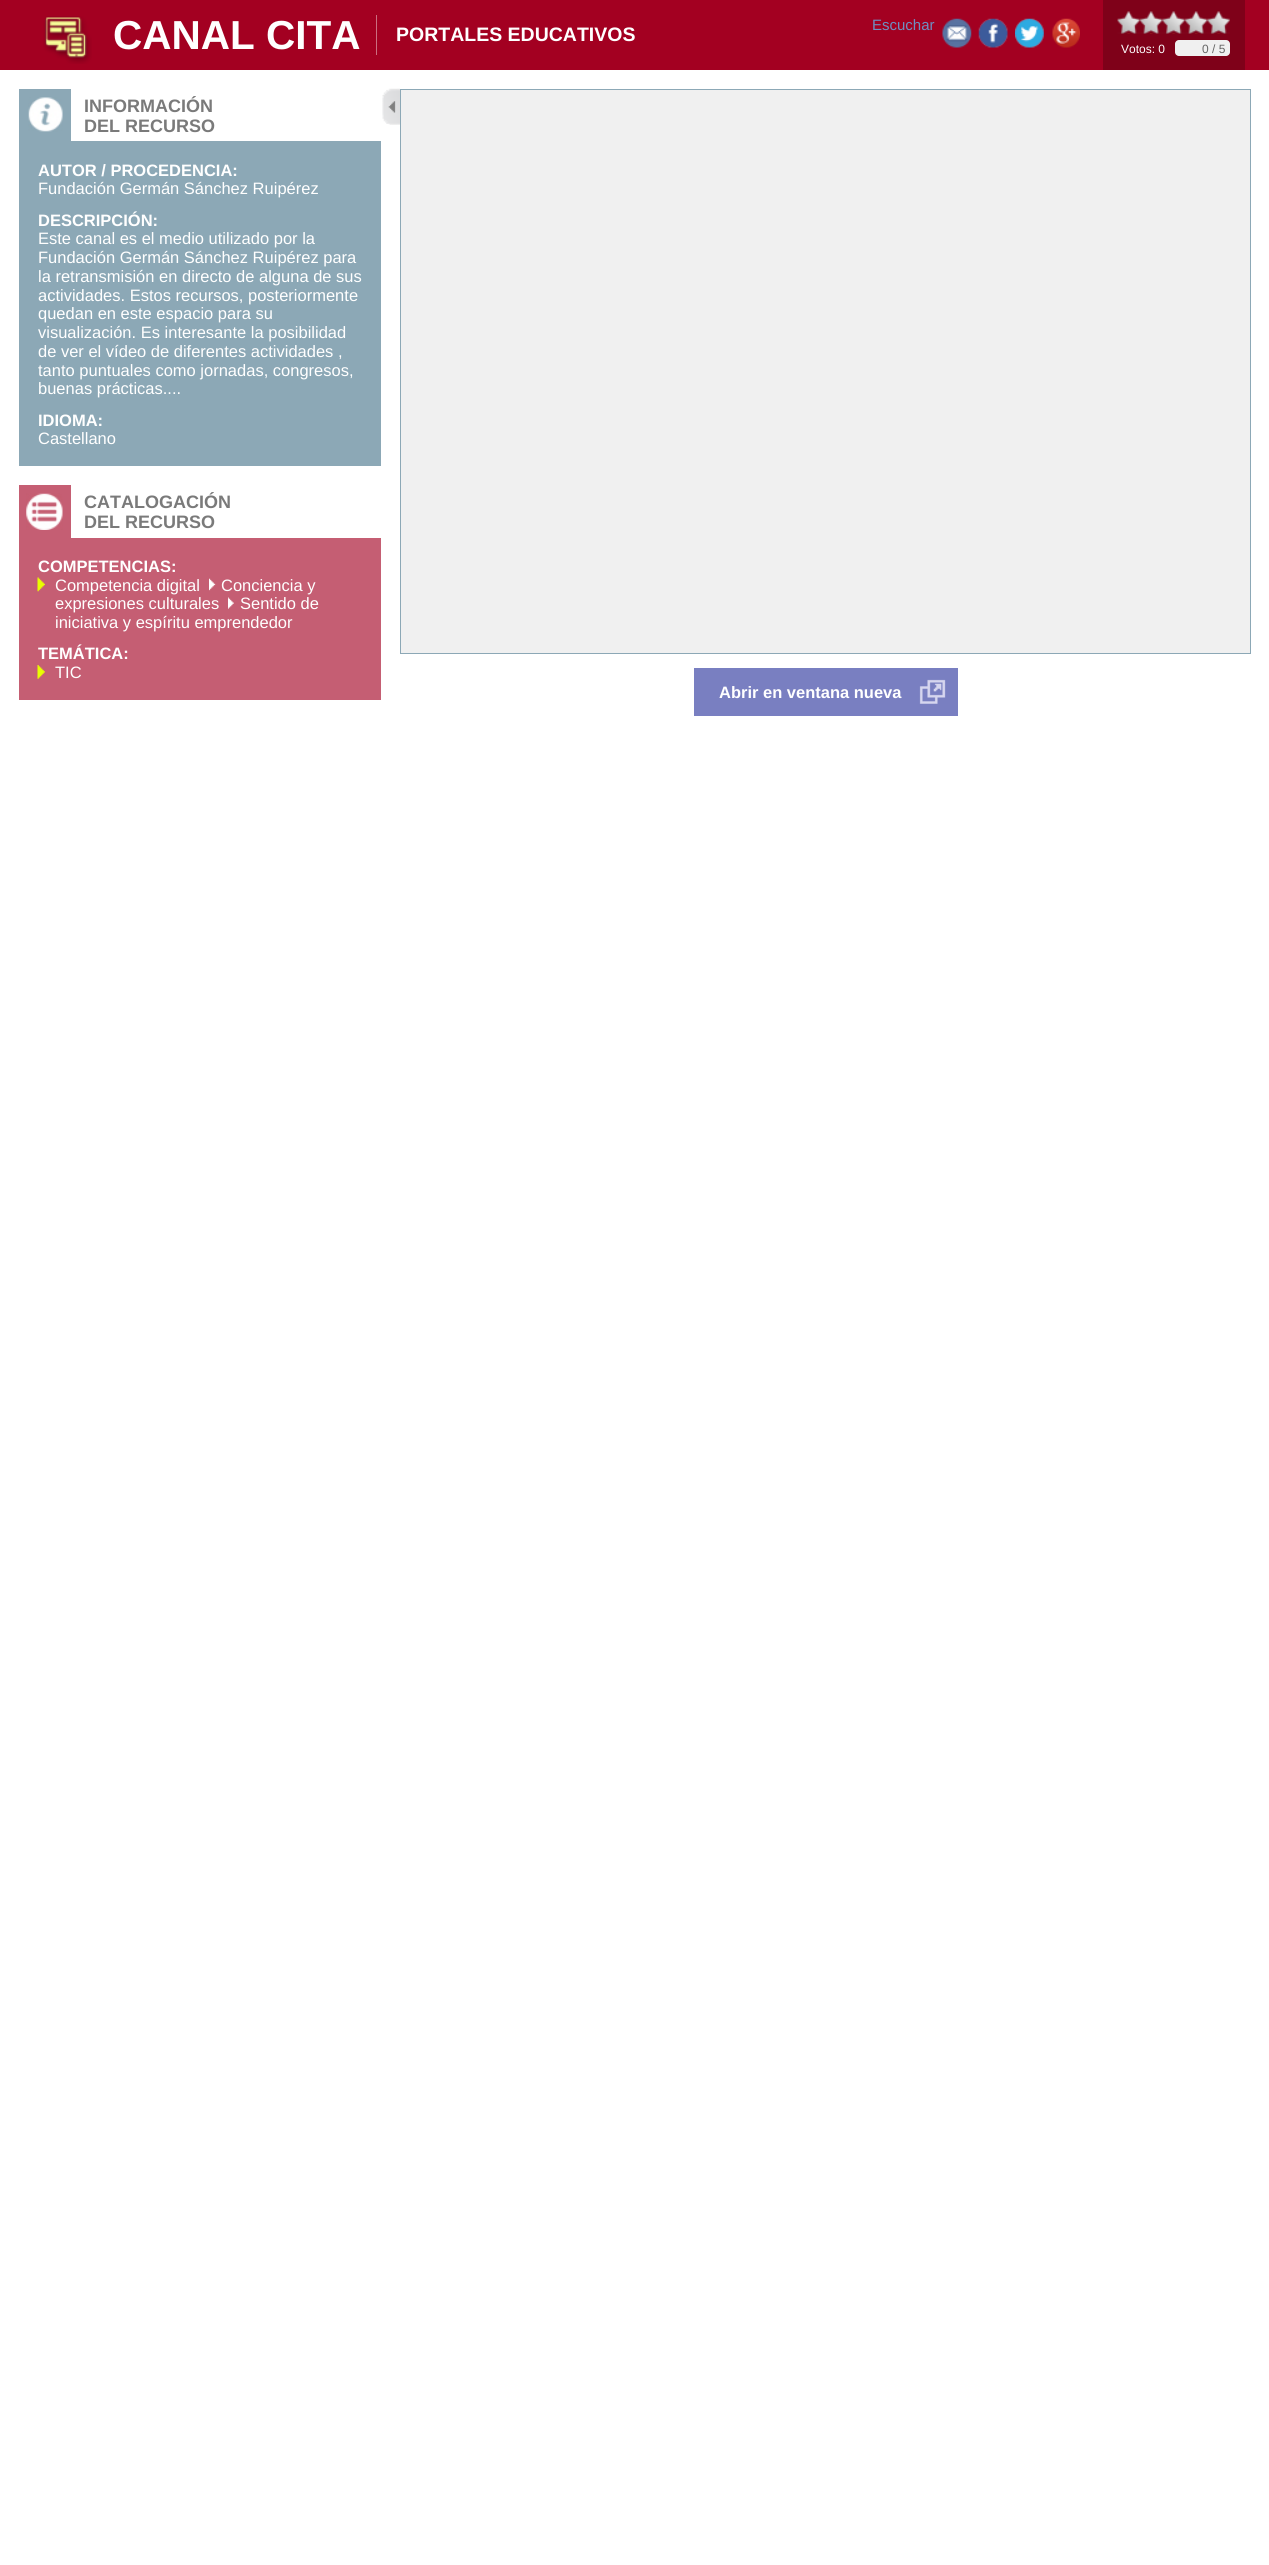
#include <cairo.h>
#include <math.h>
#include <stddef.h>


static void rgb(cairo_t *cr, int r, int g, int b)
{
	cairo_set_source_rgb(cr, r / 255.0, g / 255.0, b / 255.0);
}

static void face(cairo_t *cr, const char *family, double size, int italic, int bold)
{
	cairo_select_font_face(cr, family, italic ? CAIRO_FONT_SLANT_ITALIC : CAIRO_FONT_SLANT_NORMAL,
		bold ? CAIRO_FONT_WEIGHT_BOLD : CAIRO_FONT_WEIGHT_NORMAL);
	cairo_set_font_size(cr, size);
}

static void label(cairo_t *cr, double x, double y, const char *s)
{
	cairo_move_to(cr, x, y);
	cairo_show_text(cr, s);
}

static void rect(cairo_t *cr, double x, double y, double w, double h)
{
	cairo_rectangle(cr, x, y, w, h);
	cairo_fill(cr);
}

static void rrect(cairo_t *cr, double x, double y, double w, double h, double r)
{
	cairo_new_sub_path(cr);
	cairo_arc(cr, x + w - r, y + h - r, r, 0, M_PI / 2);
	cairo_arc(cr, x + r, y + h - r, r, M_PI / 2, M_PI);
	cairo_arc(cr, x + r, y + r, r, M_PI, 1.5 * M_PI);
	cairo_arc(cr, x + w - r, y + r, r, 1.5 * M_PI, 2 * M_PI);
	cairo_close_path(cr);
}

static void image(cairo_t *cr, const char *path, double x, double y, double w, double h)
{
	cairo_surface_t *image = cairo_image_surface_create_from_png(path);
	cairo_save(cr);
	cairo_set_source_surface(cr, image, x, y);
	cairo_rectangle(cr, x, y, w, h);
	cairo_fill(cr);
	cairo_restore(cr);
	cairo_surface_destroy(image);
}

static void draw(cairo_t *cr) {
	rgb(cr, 255, 255, 255);
	cairo_paint(cr);
	rgb(cr, 163, 0, 33);
	rect(cr, 0, 0, 1269, 70);
	face(cr, "Liberation Sans", 15, 0, 0);
	rgb(cr, 110, 143, 194);
	label(cr, 872, 30, "Escuchar");
	image(cr, "image0.png", 942, 18, 30, 30);
	image(cr, "image1.png", 978, 18, 30, 30);
	image(cr, "image2.png", 1015, 18, 29, 30);
	image(cr, "image3.png", 1052, 18, 28, 30);
	image(cr, "image4.png", 43, 16, 49, 48);
	face(cr, "Liberation Sans", 40.5, 0, 1);
	rgb(cr, 255, 255, 255);
	label(cr, 113, 49, "CANAL CITA");
	rgb(cr, 203, 110, 128);
	rect(cr, 376, 15, 1, 40);
	face(cr, "Liberation Sans", 19.5, 0, 1);
	rgb(cr, 255, 255, 255);
	label(cr, 396, 41, "PORTALES EDUCATIVOS");
	rgb(cr, 127, 1, 25);
	rect(cr, 1103, 0, 142, 70);
	image(cr, "image5.png", 1117, 11, 113, 23);
	face(cr, "Liberation Sans", 12, 0, 0);
	rgb(cr, 255, 255, 255);
	label(cr, 1121, 53, "Votos: 0");
	rgb(cr, 240, 240, 240);
	rrect(cr, 1175, 40, 55, 16, 4);
	cairo_fill(cr);
	rgb(cr, 102, 102, 102);
	label(cr, 1202, 53, "0 / 5");
	rgb(cr, 140, 168, 182);
	rect(cr, 19, 89, 52, 52);
	image(cr, "image6.png", 28, 97, 35, 35);
	face(cr, "Liberation Sans", 18, 0, 1);
	rgb(cr, 122, 122, 122);
	label(cr, 84, 112, "INFORMACIÓN");
	label(cr, 84, 132, "DEL RECURSO");
	rgb(cr, 140, 168, 182);
	rect(cr, 19, 141, 362, 325);
	face(cr, "Liberation Sans", 16.5, 0, 1);
	rgb(cr, 255, 255, 255);
	label(cr, 38, 176, "AUTOR / PROCEDENCIA:");
	face(cr, "Liberation Sans", 16.5, 0, 0);
	label(cr, 38, 194, "Fundación Germán Sánchez Ruipérez");
	face(cr, "Liberation Sans", 16.5, 0, 1);
	label(cr, 38, 226, "DESCRIPCIÓN:");
	face(cr, "Liberation Sans", 16.5, 0, 0);
	label(cr, 38, 244, "Este canal es el medio utilizado por la");
	label(cr, 38, 263, "Fundación Germán Sánchez Ruipérez para");
	label(cr, 38, 282, "la retransmisión en directo de alguna de sus");
	label(cr, 38, 301, "actividades. Estos recursos, posteriormente");
	label(cr, 38, 319, "quedan en este espacio para su");
	label(cr, 38, 338, "visualización. Es interesante la posibilidad");
	label(cr, 38, 357, "de ver el vídeo de diferentes actividades ,");
	label(cr, 38, 376, "tanto puntuales como jornadas, congresos,");
	label(cr, 38, 394, "buenas prácticas....");
	face(cr, "Liberation Sans", 16.5, 0, 1);
	label(cr, 38, 426, "IDIOMA:");
	face(cr, "Liberation Sans", 16.5, 0, 0);
	label(cr, 38, 444, "Castellano");
	rgb(cr, 197, 94, 115);
	rect(cr, 19, 485, 52, 53);
	image(cr, "image7.png", 26, 493, 37, 37);
	face(cr, "Liberation Sans", 18, 0, 1);
	rgb(cr, 122, 122, 122);
	label(cr, 84, 508, "CATALOGACIÓN");
	label(cr, 84, 528, "DEL RECURSO");
	rgb(cr, 197, 94, 115);
	rect(cr, 19, 538, 362, 162);
	face(cr, "Liberation Sans", 16.5, 0, 1);
	rgb(cr, 255, 255, 255);
	label(cr, 38, 572, "COMPETENCIAS:");
	image(cr, "image8.png", 37, 577, 8, 15);
	face(cr, "Liberation Sans", 16.5, 0, 0);
	label(cr, 55, 591, "Competencia digital");
	image(cr, "image9.png", 209, 578, 7, 13);
	label(cr, 221, 591, "Conciencia y");
	label(cr, 55, 609, "expresiones culturales");
	image(cr, "image10.png", 228, 597, 6, 12);
	label(cr, 240, 609, "Sentido de");
	label(cr, 55, 628, "iniciativa y espíritu emprendedor");
	face(cr, "Liberation Sans", 16.5, 0, 1);
	label(cr, 38, 659, "TEMÁTICA:");
	image(cr, "image11.png", 37, 665, 8, 14);
	face(cr, "Liberation Sans", 16.5, 0, 0);
	label(cr, 55, 678, "TIC");
	image(cr, "image12.png", 382, 88, 18, 37);
	rgb(cr, 240, 240, 240);
	cairo_rectangle(cr, 400.5, 89.5, 850, 564);
	cairo_fill_preserve(cr);
	rgb(cr, 140, 168, 182);
	cairo_set_line_width(cr, 1);
	cairo_stroke(cr);
	rgb(cr, 121, 127, 193);
	rect(cr, 694, 668, 264, 48);
	image(cr, "image13.png", 919, 679, 27, 25);
	face(cr, "Liberation Sans", 16.5, 0, 1);
	rgb(cr, 255, 255, 255);
	label(cr, 719, 698, "Abrir en ventana nueva");
}

int main(void) {
	cairo_surface_t *surface = cairo_image_surface_create(CAIRO_FORMAT_RGB24, 1269, 2565);
	cairo_t *cr = cairo_create(surface);
	cairo_font_options_t *options = cairo_font_options_create();
	cairo_font_options_set_hint_metrics(options, CAIRO_HINT_METRICS_OFF);
	cairo_font_options_set_hint_style(options, CAIRO_HINT_STYLE_NONE);
	cairo_set_font_options(cr, options);
	cairo_set_miter_limit(cr, 4);
	draw(cr);
	cairo_surface_write_to_png(surface, "render.png");
	cairo_font_options_destroy(options);
	cairo_destroy(cr);
	cairo_surface_destroy(surface);
	return 0;
}
